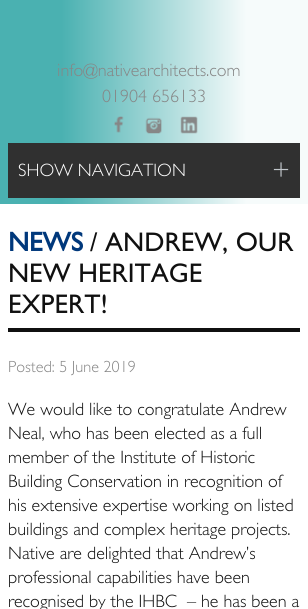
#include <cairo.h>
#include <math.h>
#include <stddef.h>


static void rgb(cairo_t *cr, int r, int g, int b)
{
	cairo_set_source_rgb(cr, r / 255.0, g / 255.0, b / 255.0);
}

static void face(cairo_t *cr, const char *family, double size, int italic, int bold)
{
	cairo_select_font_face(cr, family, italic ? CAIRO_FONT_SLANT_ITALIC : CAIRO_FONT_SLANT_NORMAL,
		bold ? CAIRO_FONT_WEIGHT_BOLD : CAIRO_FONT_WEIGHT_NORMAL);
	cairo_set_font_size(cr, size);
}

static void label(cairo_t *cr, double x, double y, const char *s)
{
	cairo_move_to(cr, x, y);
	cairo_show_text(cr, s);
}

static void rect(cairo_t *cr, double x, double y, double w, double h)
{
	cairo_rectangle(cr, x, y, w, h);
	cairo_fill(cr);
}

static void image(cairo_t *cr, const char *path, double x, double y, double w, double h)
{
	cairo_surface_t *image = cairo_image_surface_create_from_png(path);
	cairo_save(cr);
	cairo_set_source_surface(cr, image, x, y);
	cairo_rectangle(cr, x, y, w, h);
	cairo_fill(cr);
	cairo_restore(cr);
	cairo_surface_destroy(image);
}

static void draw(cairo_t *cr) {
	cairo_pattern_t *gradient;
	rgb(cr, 255, 255, 255);
	cairo_paint(cr);
	gradient = cairo_pattern_create_linear(0, 102, 308, 102);
	cairo_pattern_add_color_stop_rgba(gradient, 0.2, 0.29, 0.694, 0.694, 1);
	cairo_pattern_add_color_stop_rgba(gradient, 0.8, 0.965, 0.984, 0.984, 1);
	cairo_set_source(cr, gradient);
	cairo_pattern_destroy(gradient);
	rect(cr, 0, 0, 308, 204);
	face(cr, "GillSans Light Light", 18, 0, 0);
	rgb(cr, 134, 134, 134);
	label(cr, 57, 76, "info@nativearchitects.com");
	label(cr, 102, 102, "01904 656133");
	image(cr, "image0.png", 114, 116, 10, 17);
	image(cr, "image1.png", 145, 117, 17, 17);
	image(cr, "image2.png", 180, 116, 18, 18);
	rgb(cr, 48, 48, 48);
	rect(cr, 8, 143, 292, 55);
	rgb(cr, 255, 255, 255);
	label(cr, 18, 176, "SHOW NAVIGATION");
	face(cr, "GillSans Light Light", 27, 0, 0);
	rgb(cr, 193, 198, 203);
	label(cr, 272, 179, "+");
	rgb(cr, 16, 16, 16);
	rect(cr, 8, 328, 292, 4);
	face(cr, "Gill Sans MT", 27, 0, 1);
	rgb(cr, 0, 56, 123);
	label(cr, 8, 251, "NEWS");
	face(cr, "Gill Sans MT", 27, 0, 0);
	rgb(cr, 16, 16, 16);
	label(cr, 90, 251, "/ ANDREW, OUR");
	label(cr, 8, 282, "NEW HERITAGE");
	label(cr, 8, 313, "EXPERT!");
	face(cr, "GillSans Light Light", 16.25, 0, 0);
	rgb(cr, 134, 134, 134);
	label(cr, 8, 372, "Posted: 5 June 2019");
	face(cr, "GillSans Light Light", 18, 0, 0);
	rgb(cr, 16, 16, 16);
	label(cr, 8, 415, "We would like to congratulate Andrew");
	label(cr, 8, 439, "Neal, who has been elected as a full");
	label(cr, 8, 463, "member of the Institute of Historic");
	label(cr, 8, 487, "Building Conservation in recognition of");
	label(cr, 8, 511, "his extensive expertise working on listed");
	label(cr, 8, 535, "buildings and complex heritage projects.");
	label(cr, 8, 559, "Native are delighted that Andrew’s");
	label(cr, 8, 583, "professional capabilities have been");
	label(cr, 8, 607, "recognised by the IHBC  – he has been a");
}

int main(void) {
	cairo_surface_t *surface = cairo_image_surface_create(CAIRO_FORMAT_RGB24, 308, 609);
	cairo_t *cr = cairo_create(surface);
	cairo_font_options_t *options = cairo_font_options_create();
	cairo_font_options_set_hint_metrics(options, CAIRO_HINT_METRICS_OFF);
	cairo_font_options_set_hint_style(options, CAIRO_HINT_STYLE_NONE);
	cairo_set_font_options(cr, options);
	cairo_set_miter_limit(cr, 4);
	draw(cr);
	cairo_surface_write_to_png(surface, "render.png");
	cairo_font_options_destroy(options);
	cairo_destroy(cr);
	cairo_surface_destroy(surface);
	return 0;
}
